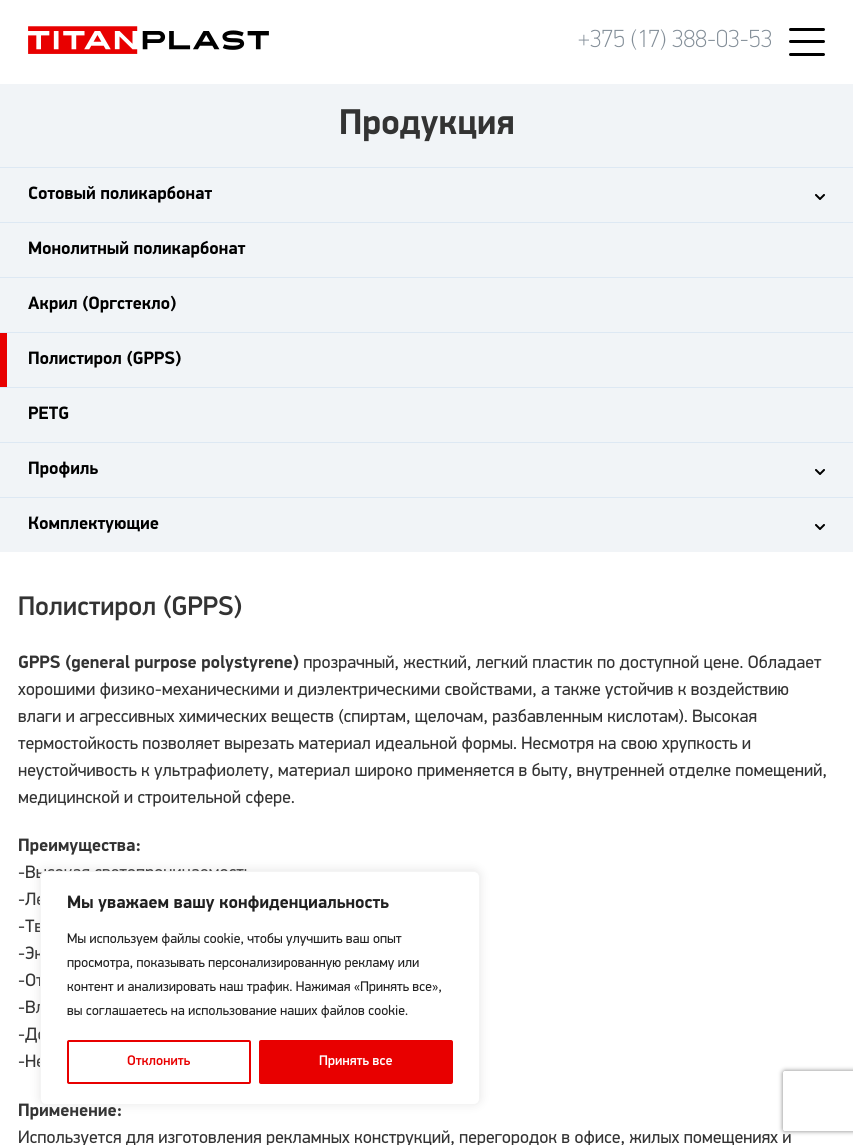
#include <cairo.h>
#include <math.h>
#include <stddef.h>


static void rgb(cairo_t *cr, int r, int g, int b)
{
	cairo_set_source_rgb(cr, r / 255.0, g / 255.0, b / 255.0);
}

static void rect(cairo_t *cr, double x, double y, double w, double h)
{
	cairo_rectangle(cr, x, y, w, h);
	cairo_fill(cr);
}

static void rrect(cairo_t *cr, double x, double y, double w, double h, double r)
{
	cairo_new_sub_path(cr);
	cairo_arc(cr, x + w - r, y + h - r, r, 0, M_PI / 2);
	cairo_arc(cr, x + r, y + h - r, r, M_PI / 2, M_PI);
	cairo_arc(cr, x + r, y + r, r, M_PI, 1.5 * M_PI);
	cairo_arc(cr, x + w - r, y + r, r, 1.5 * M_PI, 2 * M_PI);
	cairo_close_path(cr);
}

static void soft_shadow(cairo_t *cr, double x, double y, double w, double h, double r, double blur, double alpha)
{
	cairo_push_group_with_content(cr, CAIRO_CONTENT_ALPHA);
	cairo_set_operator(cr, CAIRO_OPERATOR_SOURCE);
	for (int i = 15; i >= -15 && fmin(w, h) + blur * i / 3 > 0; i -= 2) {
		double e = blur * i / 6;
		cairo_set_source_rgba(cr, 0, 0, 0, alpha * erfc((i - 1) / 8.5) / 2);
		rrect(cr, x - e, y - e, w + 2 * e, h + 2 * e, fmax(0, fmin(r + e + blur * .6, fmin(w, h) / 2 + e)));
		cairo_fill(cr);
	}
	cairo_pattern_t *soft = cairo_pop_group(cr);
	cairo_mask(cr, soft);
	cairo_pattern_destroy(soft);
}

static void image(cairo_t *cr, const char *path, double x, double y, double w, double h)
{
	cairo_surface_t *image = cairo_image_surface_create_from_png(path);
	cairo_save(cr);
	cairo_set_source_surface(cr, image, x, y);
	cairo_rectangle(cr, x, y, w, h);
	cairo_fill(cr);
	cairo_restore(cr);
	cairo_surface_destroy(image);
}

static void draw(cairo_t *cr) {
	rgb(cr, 255, 255, 255);
	cairo_paint(cr);
	image(cr, "image0.png", 28, 26, 241, 28);
	image(cr, "image1.png", 578, 29, 193, 21);
	image(cr, "image2.png", 789, 28, 36, 28);
	rgb(cr, 241, 244, 247);
	rect(cr, 0, 84, 853, 83);
	image(cr, "image3.png", 341, 109, 172, 33);
	rect(cr, 0, 168, 853, 384);
	rgb(cr, 221, 232, 243);
	rect(cr, 0, 167, 853, 1);
	image(cr, "image4.png", 29, 185, 183, 18);
	cairo_save(cr);
	cairo_rectangle(cr, 815, 194, 10, 6);
	cairo_clip(cr);
	cairo_new_path(cr);
	cairo_move_to(cr, 824, 195);
	cairo_line_to(cr, 820, 199);
	cairo_line_to(cr, 816, 195);
	rgb(cr, 0, 0, 0);
	cairo_set_line_cap(cr, CAIRO_LINE_CAP_SQUARE);
	cairo_stroke(cr);
	cairo_restore(cr);
	rect(cr, 0, 222, 853, 1);
	image(cr, "image5.png", 29, 240, 217, 18);
	rect(cr, 0, 277, 853, 1);
	image(cr, "image6.png", 28, 295, 148, 18);
	rect(cr, 0, 332, 853, 1);
	rgb(cr, 232, 0, 0);
	rect(cr, 0, 333, 7, 54);
	image(cr, "image7.png", 29, 350, 152, 18);
	rgb(cr, 221, 232, 243);
	rect(cr, 0, 387, 853, 1);
	image(cr, "image8.png", 29, 406, 40, 14);
	rect(cr, 0, 442, 853, 1);
	image(cr, "image9.png", 29, 461, 69, 17);
	cairo_save(cr);
	cairo_rectangle(cr, 815, 469, 10, 6);
	cairo_clip(cr);
	cairo_new_path(cr);
	cairo_move_to(cr, 824, 470);
	cairo_line_to(cr, 820, 474);
	cairo_line_to(cr, 816, 470);
	rgb(cr, 0, 0, 0);
	cairo_set_line_cap(cr, CAIRO_LINE_CAP_SQUARE);
	cairo_stroke(cr);
	cairo_restore(cr);
	rect(cr, 0, 497, 853, 1);
	image(cr, "image10.png", 29, 516, 130, 17);
	cairo_save(cr);
	cairo_rectangle(cr, 815, 524, 10, 6);
	cairo_clip(cr);
	cairo_new_path(cr);
	cairo_move_to(cr, 824, 525);
	cairo_line_to(cr, 820, 529);
	cairo_line_to(cr, 816, 525);
	rgb(cr, 0, 0, 0);
	cairo_set_line_cap(cr, CAIRO_LINE_CAP_SQUARE);
	cairo_stroke(cr);
	cairo_restore(cr);
	image(cr, "image11.png", 19, 595, 223, 26);
	image(cr, "image12.png", 19, 654, 280, 18);
	image(cr, "image13.png", 304, 654, 518, 18);
	image(cr, "image14.png", 18, 682, 771, 17);
	image(cr, "image15.png", 18, 708, 739, 18);
	image(cr, "image16.png", 18, 736, 733, 17);
	image(cr, "image17.png", 18, 762, 808, 18);
	image(cr, "image18.png", 18, 790, 276, 17);
	image(cr, "image19.png", 19, 838, 121, 17);
	image(cr, "image20.png", 18, 865, 229, 13);
	image(cr, "image21.png", 18, 892, 22, 14);
	image(cr, "image22.png", 18, 919, 22, 13);
	image(cr, "image23.png", 18, 946, 22, 14);
	image(cr, "image24.png", 18, 973, 22, 14);
	image(cr, "image25.png", 18, 1000, 22, 14);
	image(cr, "image26.png", 18, 1027, 22, 16);
	image(cr, "image27.png", 18, 1054, 22, 13);
	image(cr, "image28.png", 19, 1103, 102, 17);
	image(cr, "image29.png", 19, 1130, 772, 15);
	rgb(cr, 172, 171, 171);
	soft_shadow(cr, 40, 870, 440, 234, 6, 5, 0.3);
	rgb(cr, 255, 255, 255);
	rrect(cr, 40.5, 871.5, 439, 233, 5.5);
	cairo_fill_preserve(cr);
	rgb(cr, 244, 244, 244);
	cairo_set_line_width(cr, 1);
	cairo_stroke(cr);
	image(cr, "image30.png", 68, 895, 321, 17);
	image(cr, "image31.png", 67, 932, 335, 14);
	image(cr, "image32.png", 67, 960, 352, 10);
	image(cr, "image33.png", 67, 981, 374, 13);
	image(cr, "image34.png", 67, 1005, 341, 13);
	rrect(cr, 68, 1041, 182, 42, 1);
	rgb(cr, 232, 0, 0);
	cairo_set_line_width(cr, 2);
	cairo_stroke(cr);
	image(cr, "image35.png", 127, 1055, 63, 11);
	rrect(cr, 260, 1041, 192, 42, 1);
	cairo_fill_preserve(cr);
	cairo_stroke(cr);
	image(cr, "image36.png", 319, 1055, 73, 13);
	cairo_save(cr);
	cairo_set_fill_rule(cr, CAIRO_FILL_RULE_EVEN_ODD);
	cairo_new_path(cr);
	cairo_move_to(cr, 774, 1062);
	cairo_line_to(cr, 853, 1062);
	cairo_line_to(cr, 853, 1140);
	cairo_line_to(cr, 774, 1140);
	cairo_close_path(cr);
	cairo_move_to(cr, 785, 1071);
	cairo_line_to(cr, 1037, 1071);
	cairo_curve_to(cr, 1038, 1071, 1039, 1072, 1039, 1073);
	cairo_line_to(cr, 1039, 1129);
	cairo_curve_to(cr, 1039, 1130, 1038, 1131, 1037, 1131);
	cairo_line_to(cr, 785, 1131);
	cairo_curve_to(cr, 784, 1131, 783, 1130, 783, 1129);
	cairo_line_to(cr, 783, 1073);
	cairo_curve_to(cr, 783, 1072, 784, 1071, 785, 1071);
	cairo_close_path(cr);
	cairo_clip(cr);
	rgb(cr, 128, 128, 128);
	soft_shadow(cr, 783, 1071, 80, 60, 2, 2.5, 1);
	cairo_restore(cr);
}

int main(void) {
	cairo_surface_t *surface = cairo_image_surface_create(CAIRO_FORMAT_RGB24, 853, 1145);
	cairo_t *cr = cairo_create(surface);
	cairo_font_options_t *options = cairo_font_options_create();
	cairo_font_options_set_hint_metrics(options, CAIRO_HINT_METRICS_OFF);
	cairo_font_options_set_hint_style(options, CAIRO_HINT_STYLE_NONE);
	cairo_set_font_options(cr, options);
	cairo_set_miter_limit(cr, 4);
	draw(cr);
	cairo_surface_write_to_png(surface, "render.png");
	cairo_font_options_destroy(options);
	cairo_destroy(cr);
	cairo_surface_destroy(surface);
	return 0;
}
